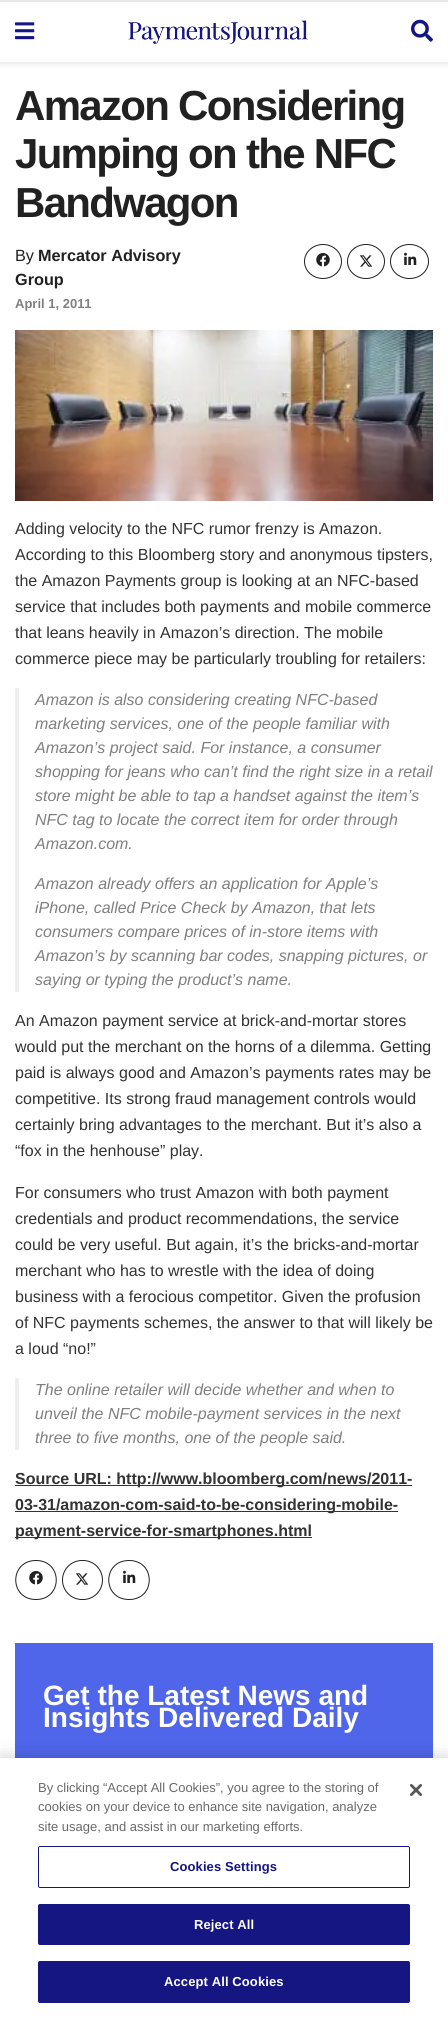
#include <cairo.h>
#include <math.h>
#include <stddef.h>


static void rgb(cairo_t *cr, int r, int g, int b)
{
	cairo_set_source_rgb(cr, r / 255.0, g / 255.0, b / 255.0);
}

static void face(cairo_t *cr, const char *family, double size, int italic, int bold)
{
	cairo_select_font_face(cr, family, italic ? CAIRO_FONT_SLANT_ITALIC : CAIRO_FONT_SLANT_NORMAL,
		bold ? CAIRO_FONT_WEIGHT_BOLD : CAIRO_FONT_WEIGHT_NORMAL);
	cairo_set_font_size(cr, size);
}

static void label(cairo_t *cr, double x, double y, const char *s)
{
	cairo_move_to(cr, x, y);
	cairo_show_text(cr, s);
}

static void tracked(cairo_t *cr, double x, double y, const char *s, double letter, double word)
{
	cairo_move_to(cr, x, y);
	while (*s) {
		char ch[5] = {0};
		int n = 0;
		do ch[n++] = *s++; while ((*s & 0xC0) == 0x80);
		cairo_show_text(cr, ch);
		cairo_rel_move_to(cr, letter + word * (*ch == ' '), 0);
	}
}

static void rect(cairo_t *cr, double x, double y, double w, double h)
{
	cairo_rectangle(cr, x, y, w, h);
	cairo_fill(cr);
}

static void rrect(cairo_t *cr, double x, double y, double w, double h, double r)
{
	cairo_new_sub_path(cr);
	cairo_arc(cr, x + w - r, y + h - r, r, 0, M_PI / 2);
	cairo_arc(cr, x + r, y + h - r, r, M_PI / 2, M_PI);
	cairo_arc(cr, x + r, y + r, r, M_PI, 1.5 * M_PI);
	cairo_arc(cr, x + w - r, y + r, r, 1.5 * M_PI, 2 * M_PI);
	cairo_close_path(cr);
}

static void soft_shadow(cairo_t *cr, double x, double y, double w, double h, double r, double blur, double alpha)
{
	cairo_push_group_with_content(cr, CAIRO_CONTENT_ALPHA);
	cairo_set_operator(cr, CAIRO_OPERATOR_SOURCE);
	for (int i = 15; i >= -15 && fmin(w, h) + blur * i / 3 > 0; i -= 2) {
		double e = blur * i / 6;
		cairo_set_source_rgba(cr, 0, 0, 0, alpha * erfc((i - 1) / 8.5) / 2);
		rrect(cr, x - e, y - e, w + 2 * e, h + 2 * e, fmax(0, fmin(r + e + blur * .6, fmin(w, h) / 2 + e)));
		cairo_fill(cr);
	}
	cairo_pattern_t *soft = cairo_pop_group(cr);
	cairo_mask(cr, soft);
	cairo_pattern_destroy(soft);
}

static void image(cairo_t *cr, const char *path, double x, double y, double w, double h)
{
	cairo_surface_t *image = cairo_image_surface_create_from_png(path);
	cairo_save(cr);
	cairo_set_source_surface(cr, image, x, y);
	cairo_rectangle(cr, x, y, w, h);
	cairo_fill(cr);
	cairo_restore(cr);
	cairo_surface_destroy(image);
}

static void draw(cairo_t *cr) {
	rgb(cr, 255, 255, 255);
	cairo_paint(cr);
	rgb(cr, 236, 236, 236);
	rect(cr, 0, 0, 448, 2);
	cairo_save(cr);
	cairo_set_fill_rule(cr, CAIRO_FILL_RULE_EVEN_ODD);
	cairo_new_path(cr);
	cairo_move_to(cr, 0, 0);
	cairo_line_to(cr, 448, 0);
	cairo_line_to(cr, 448, 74);
	cairo_line_to(cr, 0, 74);
	cairo_close_path(cr);
	cairo_move_to(cr, 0, 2);
	cairo_line_to(cr, 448, 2);
	cairo_line_to(cr, 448, 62);
	cairo_line_to(cr, 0, 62);
	cairo_close_path(cr);
	cairo_clip(cr);
	rgb(cr, 0, 0, 0);
	soft_shadow(cr, 0, 4, 448, 60, 0, 3, 0.1);
	cairo_restore(cr);
	image(cr, "image0.png", 15, 22, 20, 18);
	image(cr, "image1.png", 128, 20, 180, 24);
	image(cr, "image2.png", 411, 19, 22, 23);
	face(cr, "Liberation Sans", 42, 0, 1);
	rgb(cr, 33, 33, 33);
	tracked(cr, 15, 120, "Amazon Considering", -1.7, 0);
	tracked(cr, 15, 168, "Jumping on the NFC", -1.7, 0);
	tracked(cr, 15, 217, "Bandwagon", -1.7, 0);
	face(cr, "Liberation Sans", 16.25, 0, 0);
	label(cr, 15, 261, "By");
	face(cr, "Liberation Sans", 16.25, 0, 1);
	label(cr, 38, 261, "Mercator Advisory");
	label(cr, 15, 285, "Group");
	face(cr, "Liberation Sans", 13, 0, 1);
	rgb(cr, 127, 127, 127);
	label(cr, 15, 308, "April 1, 2011");
	cairo_new_path(cr);
	cairo_move_to(cr, 323, 244.5);
	cairo_curve_to(cr, 333, 244.5, 341.5, 252, 341.5, 261.5);
	cairo_curve_to(cr, 341.5, 271, 333, 278.5, 323, 278.5);
	cairo_curve_to(cr, 313, 278.5, 304.5, 271, 304.5, 261.5);
	cairo_curve_to(cr, 304.5, 252, 313, 244.5, 323, 244.5);
	cairo_close_path(cr);
	rgb(cr, 33, 33, 33);
	cairo_set_line_width(cr, 1);
	cairo_stroke(cr);
	image(cr, "image3.png", 316, 253, 14, 14);
	cairo_new_path(cr);
	cairo_move_to(cr, 366, 244.5);
	cairo_curve_to(cr, 376, 244.5, 384.5, 252, 384.5, 261.5);
	cairo_curve_to(cr, 384.5, 271, 376, 278.5, 366, 278.5);
	cairo_curve_to(cr, 356, 278.5, 347.5, 271, 347.5, 261.5);
	cairo_curve_to(cr, 347.5, 252, 356, 244.5, 366, 244.5);
	cairo_close_path(cr);
	cairo_stroke(cr);
	image(cr, "image4.png", 359, 255, 14, 12);
	cairo_new_path(cr);
	cairo_move_to(cr, 409.5, 244.5);
	cairo_curve_to(cr, 420, 244.5, 428.5, 252, 428.5, 261.5);
	cairo_curve_to(cr, 428.5, 271, 420, 278.5, 409.5, 278.5);
	cairo_curve_to(cr, 399, 278.5, 390.5, 271, 390.5, 261.5);
	cairo_curve_to(cr, 390.5, 252, 399, 244.5, 409.5, 244.5);
	cairo_close_path(cr);
	cairo_stroke(cr);
	image(cr, "image5.png", 404, 252, 13, 13);
	image(cr, "image6.png", 15, 330, 418, 171);
	face(cr, "Liberation Sans", 16, 0, 0);
	rgb(cr, 51, 51, 51);
	label(cr, 15, 534, "Adding velocity to the NFC rumor frenzy is Amazon.");
	label(cr, 15, 560, "According to this Bloomberg story and anonymous tipsters,");
	label(cr, 15, 586, "the Amazon Payments group is looking at an NFC-based");
	label(cr, 15, 612, "service that includes both payments and mobile commerce");
	label(cr, 15, 638, "that leans heavily in Amazon’s direction. The mobile");
	label(cr, 15, 664, "commerce piece may be particularly troubling for retailers:");
	rgb(cr, 238, 238, 238);
	rect(cr, 15, 688, 4, 304);
	face(cr, "Liberation Sans", 16, 1, 0);
	rgb(cr, 127, 127, 127);
	label(cr, 35, 705, "Amazon is also considering creating NFC-based");
	label(cr, 35, 729, "marketing services, one of the people familiar with");
	label(cr, 35, 753, "Amazon’s project said. For instance, a consumer");
	label(cr, 35, 777, "shopping for jeans who can’t find the right size in a retail");
	label(cr, 35, 801, "store might be able to tap a handset against the item’s");
	label(cr, 35, 825, "NFC tag to locate the correct item for order through");
	label(cr, 35, 849, "Amazon.com.");
	label(cr, 35, 889, "Amazon already offers an application for Apple’s");
	label(cr, 35, 913, "iPhone, called Price Check by Amazon, that lets");
	label(cr, 35, 937, "consumers compare prices of in-store items with");
	label(cr, 35, 961, "Amazon’s by scanning bar codes, snapping pictures, or");
	label(cr, 35, 985, "saying or typing the product’s name.");
	face(cr, "Liberation Sans", 16, 0, 0);
	rgb(cr, 51, 51, 51);
	label(cr, 15, 1026, "An Amazon payment service at brick-and-mortar stores");
	label(cr, 15, 1052, "would put the merchant on the horns of a dilemma. Getting");
	label(cr, 15, 1078, "paid is always good and Amazon’s payments rates may be");
	label(cr, 15, 1104, "competitive. Its strong fraud management controls would");
	label(cr, 15, 1130, "certainly bring advantages to the merchant. But it’s also a");
	label(cr, 15, 1156, "“fox in the henhouse” play.");
	label(cr, 15, 1198, "For consumers who trust Amazon with both payment");
	label(cr, 15, 1224, "credentials and product recommendations, the service");
	label(cr, 15, 1250, "could be very useful. But again, it’s the bricks-and-mortar");
	label(cr, 15, 1276, "merchant who has to wrestle with the idea of doing");
	label(cr, 15, 1302, "business with a ferocious competitor. Given the profusion");
	label(cr, 15, 1328, "of NFC payments schemes, the answer to that will likely be");
	label(cr, 15, 1354, "a loud “no!”");
	rgb(cr, 238, 238, 238);
	rect(cr, 15, 1378, 4, 72);
	face(cr, "Liberation Sans", 16, 1, 0);
	rgb(cr, 127, 127, 127);
	label(cr, 35, 1395, "The online retailer will decide whether and when to");
	label(cr, 35, 1419, "unveil the NFC mobile-payment services in the next");
	label(cr, 35, 1443, "three to five months, one of the people said.");
	rgb(cr, 51, 51, 51);
	rect(cr, 15, 1485, 397, 1);
	face(cr, "Liberation Sans", 16, 0, 1);
	label(cr, 15, 1484, "Source URL: http://www.bloomberg.com/news/2011-");
	rect(cr, 15, 1511, 383, 1);
	label(cr, 15, 1510, "03-31/amazon-com-said-to-be-considering-mobile-");
	rect(cr, 15, 1537, 297, 1);
	label(cr, 15, 1536, "payment-service-for-smartphones.html");
	cairo_new_path(cr);
	cairo_move_to(cr, 36, 1560.5);
	cairo_curve_to(cr, 63, 1560.5, 63, 1599.5, 36, 1599.5);
	cairo_curve_to(cr, 9, 1599.5, 9, 1560.5, 36, 1560.5);
	cairo_close_path(cr);
	rgb(cr, 33, 33, 33);
	cairo_stroke(cr);
	image(cr, "image3.png", 29, 1571, 14, 14);
	rrect(cr, 62.5, 1560.5, 40, 39, 19.5);
	cairo_stroke(cr);
	image(cr, "image4.png", 75, 1573, 14, 12);
	cairo_new_path(cr);
	cairo_move_to(cr, 129, 1560.5);
	cairo_curve_to(cr, 156, 1560.5, 156, 1599.5, 129, 1599.5);
	cairo_curve_to(cr, 102, 1599.5, 102, 1560.5, 129, 1560.5);
	cairo_close_path(cr);
	cairo_stroke(cr);
	image(cr, "image5.png", 123, 1570, 13, 13);
	rgb(cr, 79, 102, 235);
	rect(cr, 15, 1643, 418, 115);
	face(cr, "Liberation Sans", 28, 0, 1);
	rgb(cr, 255, 255, 255);
	label(cr, 43, 1705, "Get the Latest News and");
	label(cr, 43, 1727, "Insights Delivered Daily");
	rgb(cr, 0, 0, 0);
	soft_shadow(cr, 0, 1758, 448, 261, 0, 9, 0.2);
	rgb(cr, 255, 255, 255);
	rect(cr, 0, 1758, 448, 261);
	face(cr, "Liberation Sans", 13, 0, 0);
	rgb(cr, 105, 105, 105);
	label(cr, 38, 1792, "By clicking “Accept All Cookies”, you agree to the storing of");
	label(cr, 38, 1811, "cookies on your device to enhance site navigation, analyze");
	label(cr, 38, 1831, "site usage, and assist in our marketing efforts.");
	rrect(cr, 38.5, 1846.5, 371, 41, 1.5);
	rgb(cr, 22, 22, 130);
	cairo_stroke(cr);
	face(cr, "Liberation Sans", 13, 0, 1);
	tracked(cr, 170, 1871, "Cookies Settings", 0.1, 0);
	rrect(cr, 38.5, 1904.5, 371, 40, 1.5);
	cairo_fill_preserve(cr);
	cairo_stroke(cr);
	rgb(cr, 255, 255, 255);
	tracked(cr, 194, 1929, "Reject All", 0.1, 0);
	rgb(cr, 22, 22, 130);
	rrect(cr, 38.5, 1961.5, 371, 41, 1.5);
	cairo_fill_preserve(cr);
	cairo_stroke(cr);
	rgb(cr, 255, 255, 255);
	tracked(cr, 164, 1986, "Accept All Cookies", 0.1, 0);
	image(cr, "image7.png", 410, 1784, 12, 12);
}

int main(void) {
	cairo_surface_t *surface = cairo_image_surface_create(CAIRO_FORMAT_RGB24, 448, 2019);
	cairo_t *cr = cairo_create(surface);
	cairo_font_options_t *options = cairo_font_options_create();
	cairo_font_options_set_hint_metrics(options, CAIRO_HINT_METRICS_OFF);
	cairo_font_options_set_hint_style(options, CAIRO_HINT_STYLE_NONE);
	cairo_set_font_options(cr, options);
	cairo_set_miter_limit(cr, 4);
	draw(cr);
	cairo_surface_write_to_png(surface, "render.png");
	cairo_font_options_destroy(options);
	cairo_destroy(cr);
	cairo_surface_destroy(surface);
	return 0;
}
